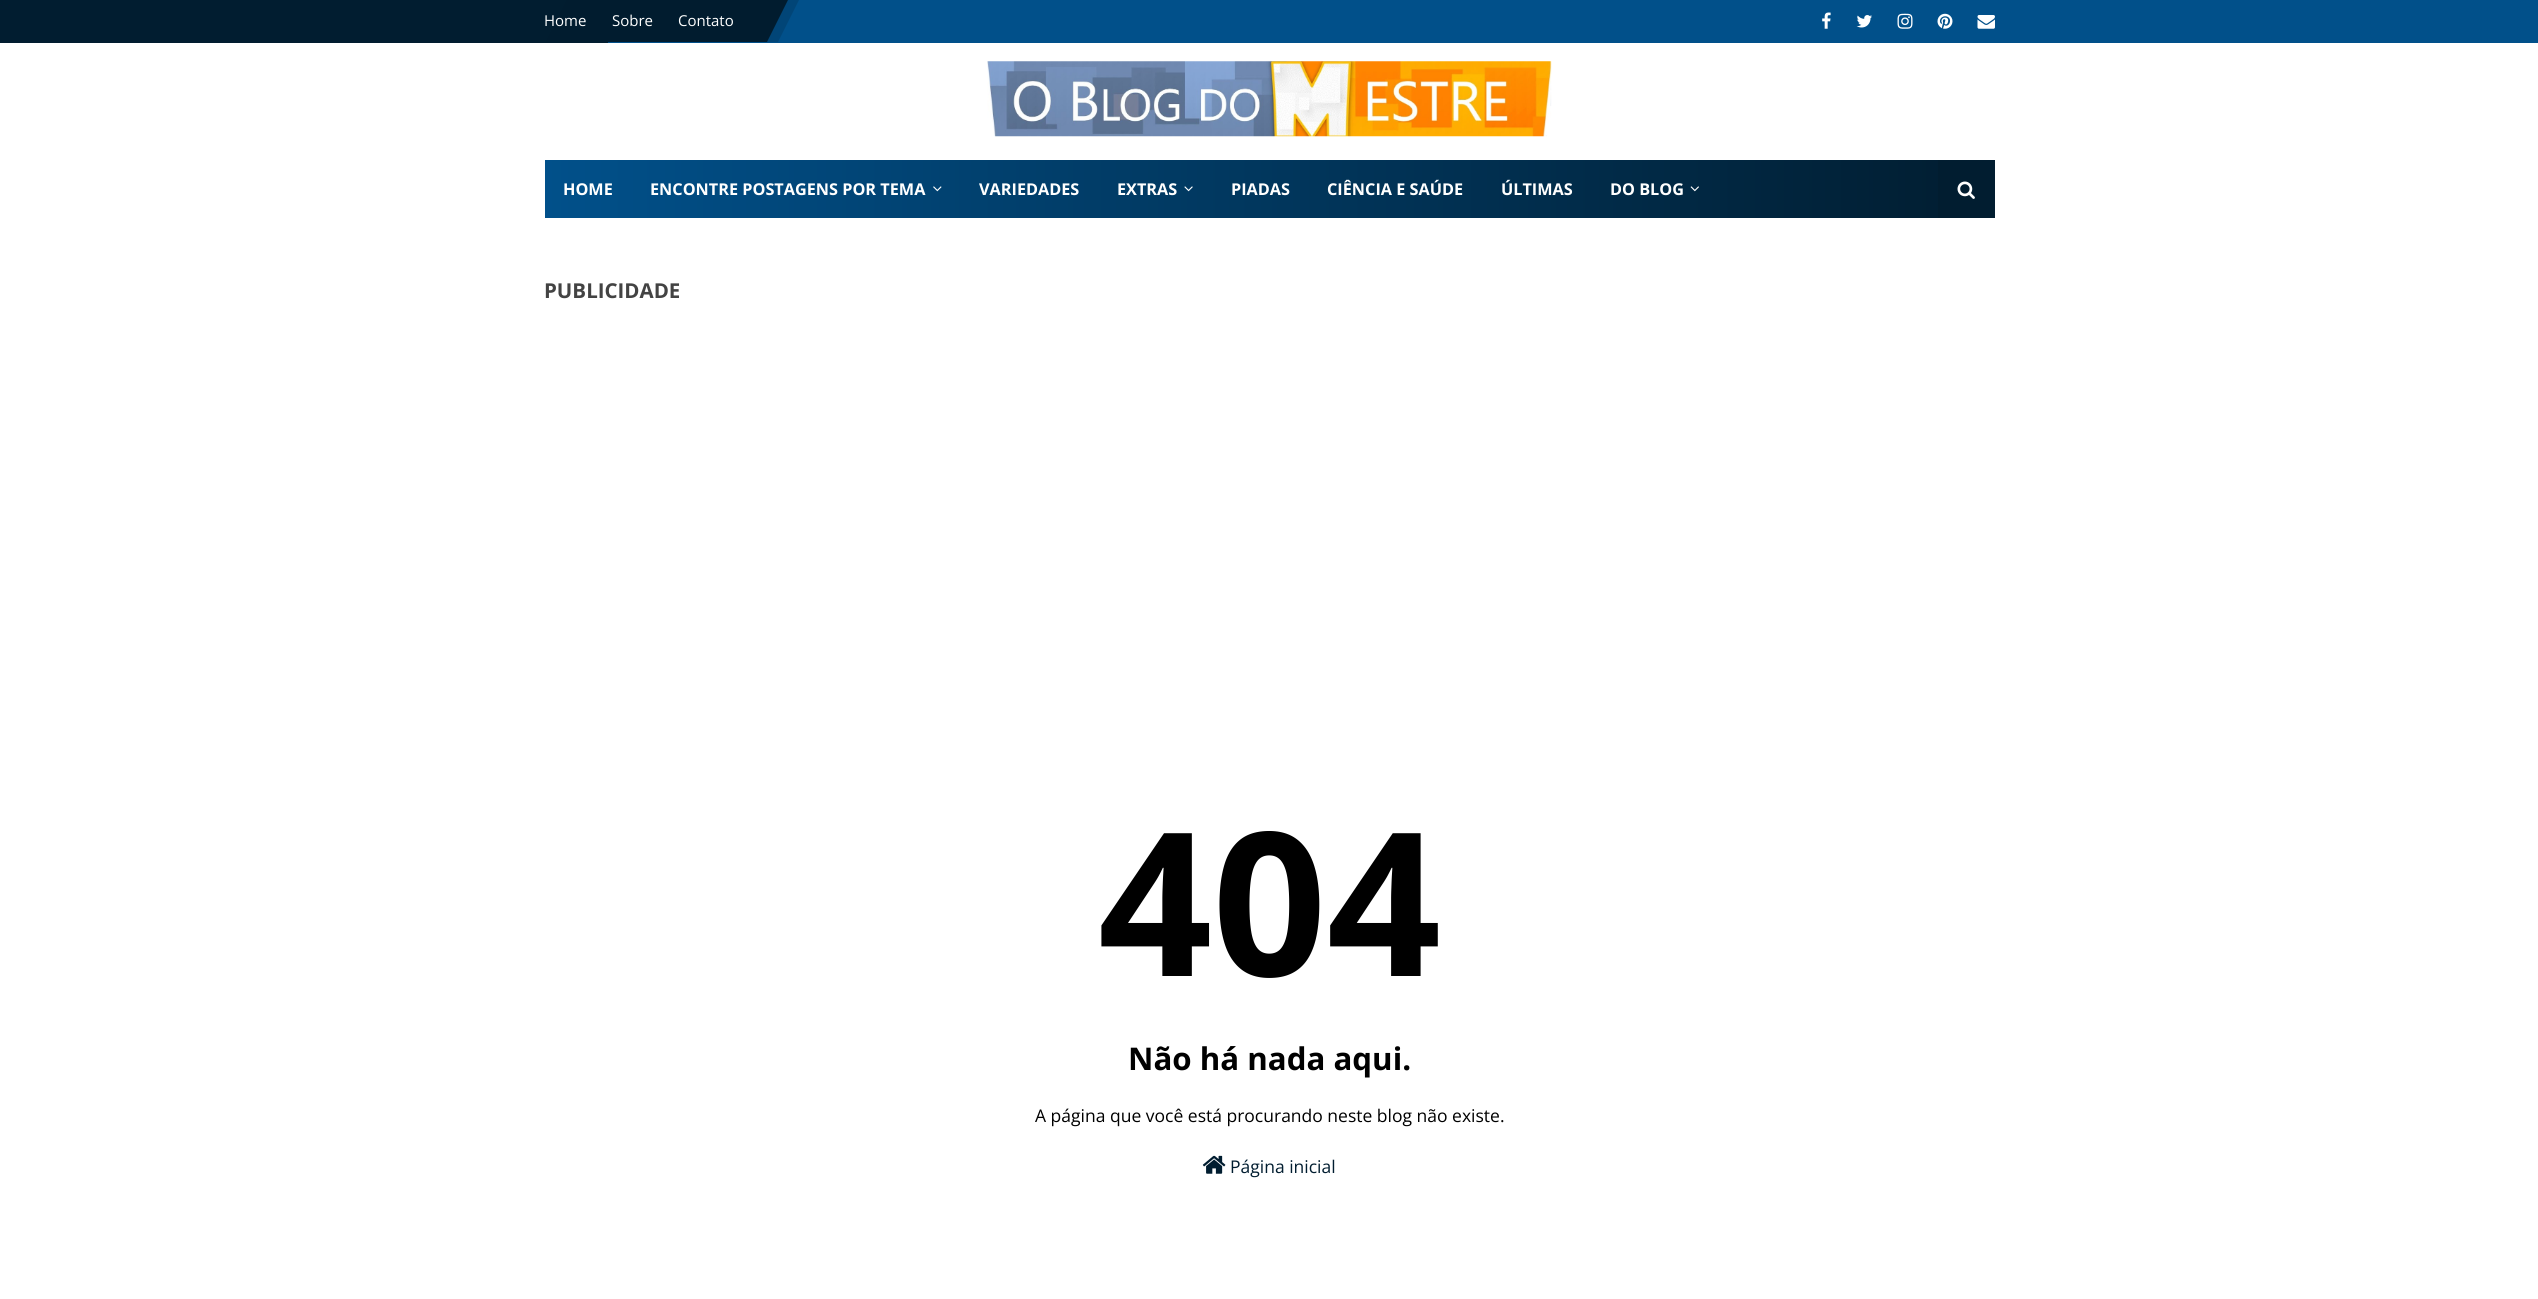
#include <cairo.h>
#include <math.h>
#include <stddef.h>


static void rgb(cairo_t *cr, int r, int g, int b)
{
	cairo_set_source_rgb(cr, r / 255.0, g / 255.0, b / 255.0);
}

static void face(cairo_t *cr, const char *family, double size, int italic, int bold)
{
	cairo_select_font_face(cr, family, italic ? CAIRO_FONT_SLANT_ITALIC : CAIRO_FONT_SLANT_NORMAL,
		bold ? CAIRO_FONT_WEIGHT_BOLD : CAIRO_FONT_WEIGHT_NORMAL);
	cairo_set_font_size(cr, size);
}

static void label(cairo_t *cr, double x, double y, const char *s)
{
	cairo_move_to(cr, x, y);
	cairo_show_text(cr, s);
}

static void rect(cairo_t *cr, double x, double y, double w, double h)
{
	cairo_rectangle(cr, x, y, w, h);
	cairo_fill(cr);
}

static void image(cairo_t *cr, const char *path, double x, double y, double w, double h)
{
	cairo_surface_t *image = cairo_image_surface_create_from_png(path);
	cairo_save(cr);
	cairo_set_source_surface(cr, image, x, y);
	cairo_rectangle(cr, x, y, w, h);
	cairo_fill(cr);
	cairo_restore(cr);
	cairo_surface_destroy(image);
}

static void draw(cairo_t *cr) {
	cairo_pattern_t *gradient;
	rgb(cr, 255, 255, 255);
	cairo_paint(cr);
	rgb(cr, 1, 80, 138);
	rect(cr, 608, 0, 1930, 43);
	rgb(cr, 1, 29, 48);
	rect(cr, 0, 0, 608, 43);
	cairo_new_path(cr);
	cairo_move_to(cr, 555, 0);
	cairo_line_to(cr, 788, 0);
	cairo_line_to(cr, 767, 42);
	cairo_line_to(cr, 534, 42);
	cairo_close_path(cr);
	cairo_fill(cr);
	cairo_set_source_rgba(cr, 0.004, 0.114, 0.188, 0.2);
	cairo_new_path(cr);
	cairo_move_to(cr, 566, 0);
	cairo_line_to(cr, 799, 0);
	cairo_line_to(cr, 778, 42);
	cairo_line_to(cr, 545, 42);
	cairo_close_path(cr);
	cairo_fill(cr);
	face(cr, "Open Sans", 15, 0, 0);
	rgb(cr, 255, 255, 255);
	label(cr, 544, 26, "Home");
	label(cr, 612, 26, "Sobre");
	label(cr, 678, 26, "Contato");
	image(cr, "image0.png", 1822, 12, 9, 17);
	image(cr, "image1.png", 1856, 15, 16, 13);
	image(cr, "image2.png", 1897, 13, 16, 16);
	image(cr, "image3.png", 1937, 13, 16, 16);
	image(cr, "image4.png", 1977, 15, 18, 14);
	image(cr, "image5.png", 987, 61, 565, 76);
	gradient = cairo_pattern_create_linear(545, 189, 1995, 189);
	cairo_pattern_add_color_stop_rgba(gradient, 0, 0.004, 0.314, 0.541, 1);
	cairo_pattern_add_color_stop_rgba(gradient, 1, 0.004, 0.114, 0.188, 1);
	cairo_set_source(cr, gradient);
	cairo_pattern_destroy(gradient);
	rect(cr, 545, 160, 1393, 58);
	face(cr, "Open Sans", 16.25, 0, 1);
	rgb(cr, 255, 255, 255);
	label(cr, 563, 195, "HOME");
	label(cr, 650, 195, "ENCONTRE POSTAGENS POR TEMA");
	image(cr, "image6.png", 933, 186, 9, 6);
	label(cr, 979, 195, "VARIEDADES");
	label(cr, 1117, 195, "EXTRAS");
	image(cr, "image7.png", 1184, 186, 9, 6);
	label(cr, 1231, 195, "PIADAS");
	label(cr, 1327, 195, "CIÊNCIA E SAÚDE");
	label(cr, 1501, 195, "ÚLTIMAS");
	label(cr, 1610, 195, "DO BLOG");
	image(cr, "image8.png", 1690, 186, 9, 6);
	rgb(cr, 1, 29, 48);
	rect(cr, 1938, 160, 57, 58);
	image(cr, "image9.png", 1957, 181, 18, 18);
	face(cr, "Open Sans", 20.5, 0, 1);
	rgb(cr, 67, 67, 67);
	label(cr, 544, 298, "PUBLICIDADE");
	face(cr, "Open Sans", 200, 0, 1);
	rgb(cr, 0, 0, 0);
	label(cr, 1098, 976, "404");
	face(cr, "Open Sans", 31.25, 0, 1);
	label(cr, 1128, 1070, "Não há nada aqui.");
	face(cr, "Open Sans", 17.5, 0, 0);
	label(cr, 1035, 1122, "A página que você está procurando neste blog não existe.");
	image(cr, "image10.png", 1202, 1155, 24, 19);
	rgb(cr, 1, 29, 48);
	label(cr, 1230, 1173, "Página inicial");
}

int main(void) {
	cairo_surface_t *surface = cairo_image_surface_create(CAIRO_FORMAT_RGB24, 2538, 1299);
	cairo_t *cr = cairo_create(surface);
	cairo_font_options_t *options = cairo_font_options_create();
	cairo_font_options_set_hint_metrics(options, CAIRO_HINT_METRICS_OFF);
	cairo_font_options_set_hint_style(options, CAIRO_HINT_STYLE_NONE);
	cairo_set_font_options(cr, options);
	cairo_set_miter_limit(cr, 4);
	draw(cr);
	cairo_surface_write_to_png(surface, "render.png");
	cairo_font_options_destroy(options);
	cairo_destroy(cr);
	cairo_surface_destroy(surface);
	return 0;
}
